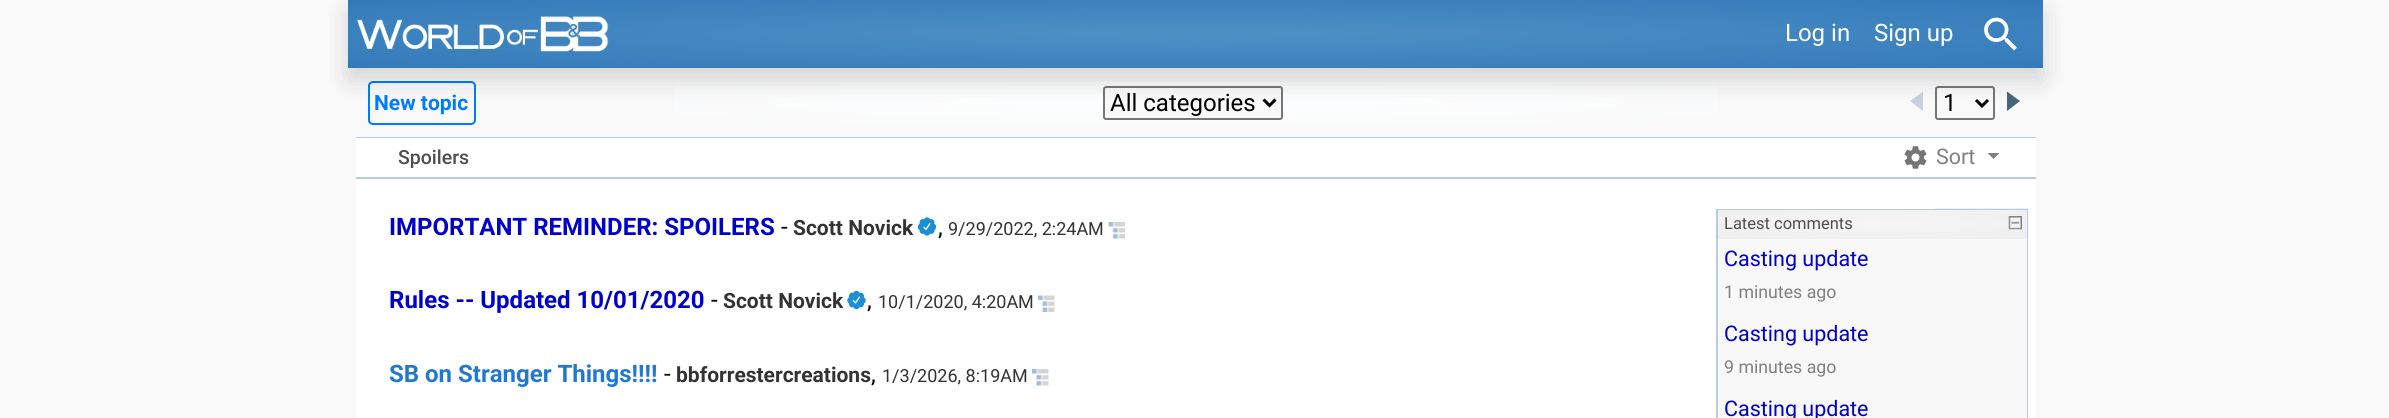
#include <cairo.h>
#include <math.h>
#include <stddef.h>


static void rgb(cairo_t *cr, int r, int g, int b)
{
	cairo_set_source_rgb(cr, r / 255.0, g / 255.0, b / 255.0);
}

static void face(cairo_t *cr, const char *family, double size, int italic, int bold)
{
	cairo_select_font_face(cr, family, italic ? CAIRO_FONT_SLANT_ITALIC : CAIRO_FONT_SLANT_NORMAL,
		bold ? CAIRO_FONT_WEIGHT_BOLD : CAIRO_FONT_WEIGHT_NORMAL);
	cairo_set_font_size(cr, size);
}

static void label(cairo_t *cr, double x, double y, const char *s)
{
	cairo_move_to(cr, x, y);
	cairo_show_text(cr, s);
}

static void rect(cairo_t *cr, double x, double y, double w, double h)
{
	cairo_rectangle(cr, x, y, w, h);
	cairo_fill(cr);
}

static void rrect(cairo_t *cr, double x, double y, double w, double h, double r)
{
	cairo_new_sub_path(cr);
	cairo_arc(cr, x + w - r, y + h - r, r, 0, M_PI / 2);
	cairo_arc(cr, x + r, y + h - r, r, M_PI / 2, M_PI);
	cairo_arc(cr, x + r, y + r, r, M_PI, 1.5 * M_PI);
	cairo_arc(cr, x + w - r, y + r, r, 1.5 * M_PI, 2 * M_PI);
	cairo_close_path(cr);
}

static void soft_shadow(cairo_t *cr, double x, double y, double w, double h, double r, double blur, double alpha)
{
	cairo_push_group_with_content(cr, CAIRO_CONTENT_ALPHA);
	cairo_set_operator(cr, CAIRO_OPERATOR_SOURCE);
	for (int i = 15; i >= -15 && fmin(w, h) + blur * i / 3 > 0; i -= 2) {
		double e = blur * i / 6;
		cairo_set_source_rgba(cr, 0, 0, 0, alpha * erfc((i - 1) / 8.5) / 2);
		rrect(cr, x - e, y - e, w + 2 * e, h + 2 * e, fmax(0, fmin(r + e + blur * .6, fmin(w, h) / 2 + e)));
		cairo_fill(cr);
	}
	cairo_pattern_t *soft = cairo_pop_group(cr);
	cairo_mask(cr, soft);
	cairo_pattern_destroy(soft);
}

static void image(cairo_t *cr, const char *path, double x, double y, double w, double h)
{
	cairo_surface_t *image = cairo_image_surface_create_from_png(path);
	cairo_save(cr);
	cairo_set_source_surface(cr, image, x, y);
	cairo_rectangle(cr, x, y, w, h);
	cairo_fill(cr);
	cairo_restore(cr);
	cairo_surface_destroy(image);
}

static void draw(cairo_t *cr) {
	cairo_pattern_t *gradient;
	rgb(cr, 249, 249, 249);
	cairo_paint(cr);
	gradient = cairo_pattern_create_radial(0, 0, 0, 0, 0, 1);
	cairo_pattern_set_matrix(gradient, &(cairo_matrix_t){1.0 / 1188, 0, 0, 1.0 / 48, -1.0 * 1196 / 1188, -1.0 * 103 / 48});
	cairo_pattern_add_color_stop_rgba(gradient, 0, 0.992, 0.996, 1, 1);
	cairo_pattern_add_color_stop_rgba(gradient, 1, 0.969, 0.969, 0.969, 1);
	cairo_set_source(cr, gradient);
	cairo_pattern_destroy(gradient);
	rect(cr, 675, 82, 1042, 42);
	rrect(cr, 369, 82, 106, 42, 4);
	rgb(cr, 0, 123, 255);
	cairo_stroke(cr);
	rgb(cr, 249, 249, 249);
	rrect(cr, 1104, 87, 178, 32, 2);
	cairo_fill_preserve(cr);
	rgb(cr, 118, 118, 118);
	cairo_stroke(cr);
	cairo_new_path(cr);
	cairo_move_to(cr, 1263.5, 99.5);
	cairo_line_to(cr, 1269.5, 105.5);
	cairo_line_to(cr, 1275.5, 99.5);
	rgb(cr, 0, 0, 0);
	cairo_set_line_width(cr, 3);
	cairo_stroke(cr);
	rgb(cr, 200, 207, 221);
	cairo_new_path(cr);
	cairo_move_to(cr, 1910, 101);
	cairo_line_to(cr, 1923, 111);
	cairo_line_to(cr, 1923, 91.5);
	cairo_close_path(cr);
	cairo_fill(cr);
	rrect(cr, 1936, 87, 58, 32, 2);
	rgb(cr, 118, 118, 118);
	cairo_set_line_width(cr, 2);
	cairo_stroke(cr);
	cairo_new_path(cr);
	cairo_move_to(cr, 1976, 100);
	cairo_line_to(cr, 1982, 106);
	cairo_line_to(cr, 1988, 100);
	rgb(cr, 0, 0, 0);
	cairo_set_line_width(cr, 3);
	cairo_stroke(cr);
	rgb(cr, 68, 102, 119);
	cairo_new_path(cr);
	cairo_move_to(cr, 2020, 101);
	cairo_line_to(cr, 2007, 111);
	cairo_line_to(cr, 2007, 91.5);
	cairo_close_path(cr);
	cairo_fill(cr);
	rgb(cr, 0, 0, 0);
	soft_shadow(cr, 348, 12, 1695, 68, 0, 12, 0.15);
	gradient = cairo_pattern_create_radial(0, 0, 0, 0, 0, 1);
	cairo_pattern_set_matrix(gradient, &(cairo_matrix_t){1.0 / 1199, 0, 0, 1.0 / 48, -1.0 * 1196 / 1199, -1.0 * 34 / 48});
	cairo_pattern_add_color_stop_rgba(gradient, 0, 0.306, 0.569, 0.773, 1);
	cairo_pattern_add_color_stop_rgba(gradient, 1, 0.2, 0.478, 0.729, 1);
	cairo_set_source(cr, gradient);
	cairo_pattern_destroy(gradient);
	rect(cr, 348, 0, 1695, 68);
	image(cr, "image0.png", 357, 16, 252, 36);
	face(cr, "Roboto", 24, 0, 0);
	rgb(cr, 255, 255, 255);
	label(cr, 1785, 41, "Log in");
	label(cr, 1874, 41, "Sign up");
	image(cr, "image1.png", 1984, 17, 33, 34);
	rgb(cr, 186, 203, 223);
	rect(cr, 356, 177, 1680, 2);
	face(cr, "Roboto", 21, 0, 1);
	rgb(cr, 0, 123, 255);
	label(cr, 374, 110, "New topic");
	face(cr, "Roboto", 24, 0, 0);
	rgb(cr, 0, 0, 0);
	label(cr, 1110, 111, "All categories");
	label(cr, 1943, 111, "1");
	rgb(cr, 186, 203, 223);
	rect(cr, 356, 137, 1680, 1);
	rgb(cr, 255, 255, 255);
	rect(cr, 356, 138, 1680, 39);
	face(cr, "Roboto Medium", 19.5, 0, 0);
	rgb(cr, 77, 77, 77);
	label(cr, 398, 164, "Spoilers");
	image(cr, "image2.png", 1904, 146, 23, 23);
	face(cr, "Roboto", 21.5, 0, 0);
	rgb(cr, 128, 128, 128);
	label(cr, 1936, 164, "Sort");
	cairo_new_path(cr);
	cairo_move_to(cr, 1987.5, 153);
	cairo_line_to(cr, 1999.5, 153);
	cairo_line_to(cr, 1993.5, 159);
	cairo_close_path(cr);
	cairo_fill(cr);
	rgb(cr, 255, 255, 255);
	rect(cr, 356, 179, 1680, 239);
	face(cr, "Roboto", 24, 0, 1);
	rgb(cr, 0, 0, 204);
	label(cr, 389, 235, "IMPORTANT REMINDER: SPOILERS");
	face(cr, "Roboto", 24, 0, 0);
	rgb(cr, 0, 0, 0);
	label(cr, 781, 235, "-");
	face(cr, "Roboto", 21, 0, 1);
	rgb(cr, 51, 51, 51);
	label(cr, 793, 235, "Scott Novick");
	image(cr, "image3.png", 917, 217, 20, 19);
	face(cr, "Roboto", 18, 0, 0);
	label(cr, 948, 235, "9/29/2022, 2:24AM");
	image(cr, "image4.png", 1108, 222, 17, 17);
	face(cr, "Roboto", 24, 0, 0);
	rgb(cr, 0, 0, 0);
	label(cr, 938, 235, ",");
	face(cr, "Roboto", 24, 0, 1);
	rgb(cr, 0, 0, 204);
	label(cr, 389, 308, "Rules -- Updated 10/01/2020");
	face(cr, "Roboto", 24, 0, 0);
	rgb(cr, 0, 0, 0);
	label(cr, 711, 308, "-");
	face(cr, "Roboto", 21, 0, 1);
	rgb(cr, 51, 51, 51);
	label(cr, 723, 308, "Scott Novick");
	image(cr, "image5.png", 847, 290, 19, 20);
	face(cr, "Roboto", 18, 0, 0);
	label(cr, 878, 308, "10/1/2020, 4:20AM");
	image(cr, "image6.png", 1038, 295, 17, 17);
	face(cr, "Roboto", 24, 0, 0);
	rgb(cr, 0, 0, 0);
	label(cr, 867, 308, ",");
	face(cr, "Roboto", 24, 0, 1);
	rgb(cr, 33, 120, 211);
	label(cr, 389, 382, "SB on Stranger Things!!!!");
	face(cr, "Roboto", 24, 0, 0);
	rgb(cr, 0, 0, 0);
	label(cr, 664, 382, "-");
	face(cr, "Roboto", 21, 0, 1);
	rgb(cr, 51, 51, 51);
	label(cr, 676, 382, "bbforrestercreations");
	face(cr, "Roboto", 18, 0, 0);
	label(cr, 882, 382, "1/3/2026, 8:19AM");
	image(cr, "image7.png", 1032, 369, 17, 17);
	face(cr, "Roboto", 24, 0, 0);
	rgb(cr, 0, 0, 0);
	label(cr, 871, 382, ",");
	image(cr, "image8.png", 1935, 208, 93, 1);
	cairo_rectangle(cr, 1717, 210, 310, 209);
	rgb(cr, 186, 203, 223);
	cairo_set_line_width(cr, 2);
	cairo_stroke(cr);
	gradient = cairo_pattern_create_radial(0, 0, 0, 0, 0, 1);
	cairo_pattern_set_matrix(gradient, &(cairo_matrix_t){1.0 / 218, 0, 0, 1.0 / 20, -1.0 * 1872 / 218, -1.0 * 224 / 20});
	cairo_pattern_add_color_stop_rgba(gradient, 0, 0.965, 0.965, 0.965, 1);
	cairo_pattern_add_color_stop_rgba(gradient, 1, 0.937, 0.937, 0.937, 1);
	cairo_set_source(cr, gradient);
	cairo_pattern_destroy(gradient);
	rect(cr, 1718, 210, 309, 29);
	face(cr, "Roboto", 16.5, 0, 0);
	rgb(cr, 77, 77, 77);
	label(cr, 1724, 229, "Latest comments");
	rgb(cr, 248, 248, 248);
	rect(cr, 1718, 239, 309, 179);
	face(cr, "Roboto", 21.5, 0, 0);
	rgb(cr, 0, 0, 204);
	label(cr, 1724, 266, "Casting update");
	face(cr, "Roboto", 17.75, 0, 0);
	rgb(cr, 128, 128, 128);
	label(cr, 1724, 298, "1 minutes ago");
	face(cr, "Roboto", 21.5, 0, 0);
	rgb(cr, 0, 0, 204);
	label(cr, 1724, 341, "Casting update");
	face(cr, "Roboto", 17.75, 0, 0);
	rgb(cr, 128, 128, 128);
	label(cr, 1724, 373, "9 minutes ago");
	face(cr, "Roboto", 21.5, 0, 0);
	rgb(cr, 0, 0, 204);
	label(cr, 1724, 416, "Casting update");
	image(cr, "image9.png", 2008, 216, 14, 14);
}

int main(void) {
	cairo_surface_t *surface = cairo_image_surface_create(CAIRO_FORMAT_RGB24, 2389, 418);
	cairo_t *cr = cairo_create(surface);
	cairo_font_options_t *options = cairo_font_options_create();
	cairo_font_options_set_hint_metrics(options, CAIRO_HINT_METRICS_OFF);
	cairo_font_options_set_hint_style(options, CAIRO_HINT_STYLE_NONE);
	cairo_set_font_options(cr, options);
	cairo_set_miter_limit(cr, 4);
	draw(cr);
	cairo_surface_write_to_png(surface, "render.png");
	cairo_font_options_destroy(options);
	cairo_destroy(cr);
	cairo_surface_destroy(surface);
	return 0;
}
